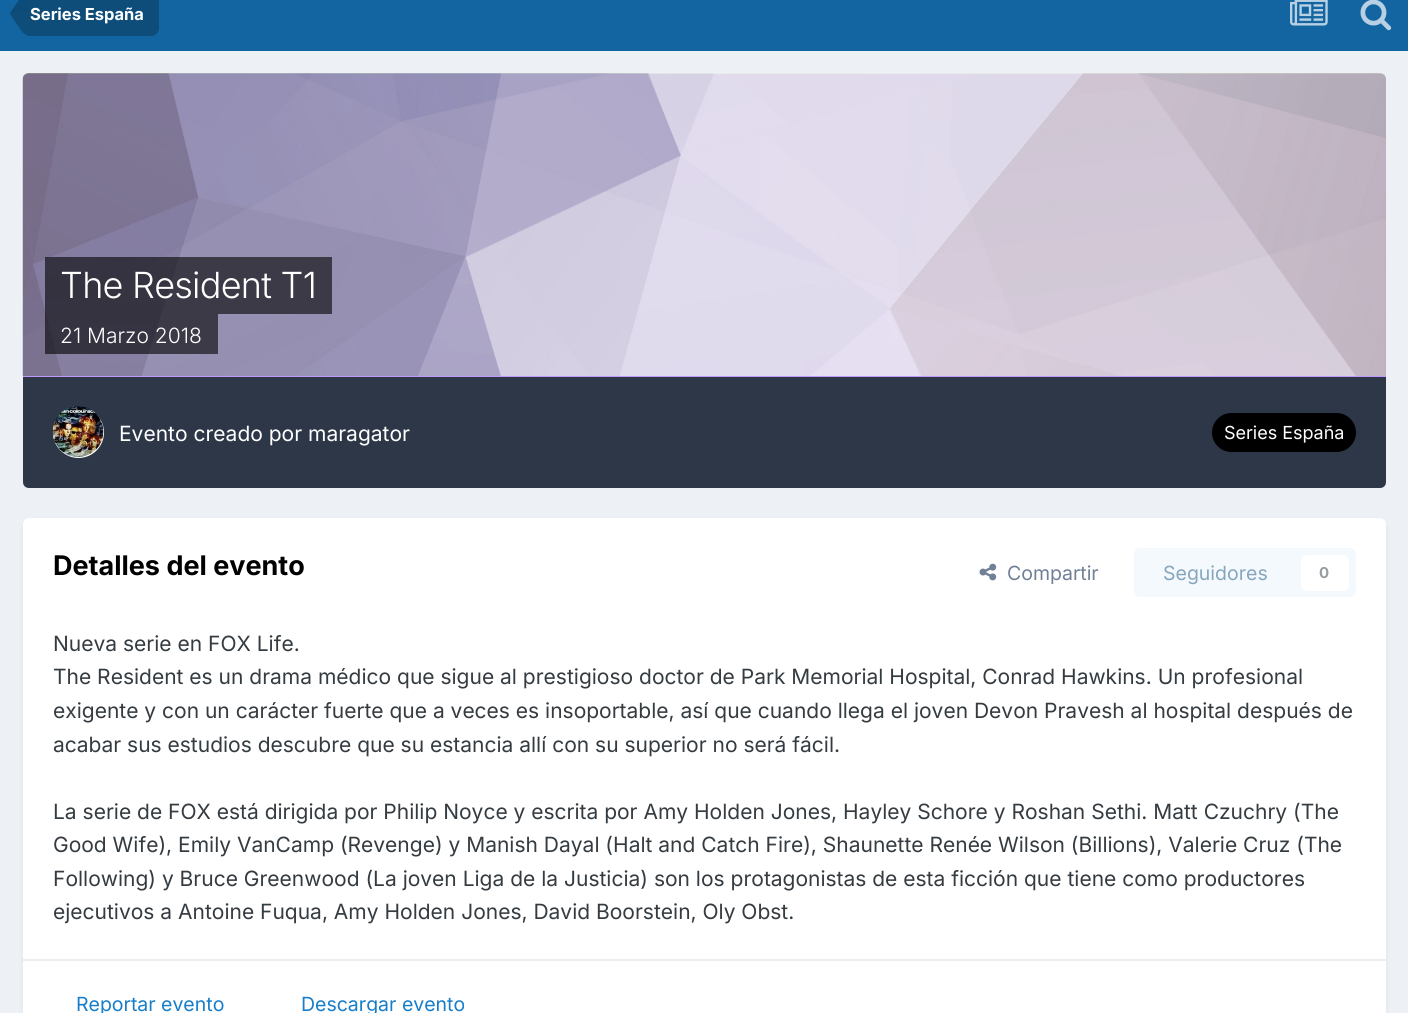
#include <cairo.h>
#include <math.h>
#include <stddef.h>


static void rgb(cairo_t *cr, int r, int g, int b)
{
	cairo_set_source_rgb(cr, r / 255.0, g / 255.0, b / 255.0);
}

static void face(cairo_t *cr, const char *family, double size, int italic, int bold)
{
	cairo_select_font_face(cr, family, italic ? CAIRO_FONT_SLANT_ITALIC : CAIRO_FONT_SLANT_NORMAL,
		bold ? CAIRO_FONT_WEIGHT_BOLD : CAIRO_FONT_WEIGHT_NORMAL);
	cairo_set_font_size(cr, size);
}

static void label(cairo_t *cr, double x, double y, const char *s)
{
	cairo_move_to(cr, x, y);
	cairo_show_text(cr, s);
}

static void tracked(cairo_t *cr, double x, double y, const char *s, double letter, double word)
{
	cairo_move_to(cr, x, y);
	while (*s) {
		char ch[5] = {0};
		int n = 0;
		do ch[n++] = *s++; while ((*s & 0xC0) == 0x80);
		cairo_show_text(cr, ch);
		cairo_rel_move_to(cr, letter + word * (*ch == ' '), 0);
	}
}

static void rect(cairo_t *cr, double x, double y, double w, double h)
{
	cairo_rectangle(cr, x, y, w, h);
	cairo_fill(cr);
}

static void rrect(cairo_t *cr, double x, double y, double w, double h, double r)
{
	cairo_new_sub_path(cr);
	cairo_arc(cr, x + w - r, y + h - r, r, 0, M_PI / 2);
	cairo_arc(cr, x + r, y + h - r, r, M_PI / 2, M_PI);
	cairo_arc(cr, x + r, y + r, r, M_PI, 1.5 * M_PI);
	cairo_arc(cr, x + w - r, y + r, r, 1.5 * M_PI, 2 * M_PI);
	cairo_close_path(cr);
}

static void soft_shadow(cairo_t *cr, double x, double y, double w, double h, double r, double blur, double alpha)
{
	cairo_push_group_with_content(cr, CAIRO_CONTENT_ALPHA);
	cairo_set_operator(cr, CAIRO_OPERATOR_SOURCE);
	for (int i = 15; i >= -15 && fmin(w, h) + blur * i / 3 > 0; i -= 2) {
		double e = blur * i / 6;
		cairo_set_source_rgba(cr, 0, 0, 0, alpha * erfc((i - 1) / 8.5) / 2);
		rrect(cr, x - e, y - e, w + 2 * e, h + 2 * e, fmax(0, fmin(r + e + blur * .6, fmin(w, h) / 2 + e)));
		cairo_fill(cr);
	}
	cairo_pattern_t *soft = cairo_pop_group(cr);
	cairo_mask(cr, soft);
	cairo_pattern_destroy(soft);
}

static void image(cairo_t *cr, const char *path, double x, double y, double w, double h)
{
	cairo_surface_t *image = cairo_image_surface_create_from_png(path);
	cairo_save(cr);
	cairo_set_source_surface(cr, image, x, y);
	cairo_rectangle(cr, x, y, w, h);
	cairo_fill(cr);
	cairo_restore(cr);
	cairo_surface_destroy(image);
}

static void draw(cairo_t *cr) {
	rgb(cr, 237, 240, 244);
	cairo_paint(cr);
	rgb(cr, 18, 101, 161);
	rect(cr, 0, 0, 1408, 51);
	rgb(cr, 14, 76, 121);
	cairo_new_path(cr);
	cairo_move_to(cr, 30, -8);
	cairo_line_to(cr, 151, -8);
	cairo_curve_to(cr, 155.5, -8, 159, -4.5, 159, 0);
	cairo_line_to(cr, 159, 28);
	cairo_curve_to(cr, 159, 32.5, 155.5, 36, 151, 36);
	cairo_line_to(cr, 30, 36);
	cairo_close_path(cr);
	cairo_fill(cr);
	cairo_new_path(cr);
	cairo_move_to(cr, 10.5, 15);
	cairo_line_to(cr, 10, 13.5);
	cairo_line_to(cr, 30, 13.5);
	cairo_line_to(cr, 30, 36);
	cairo_curve_to(cr, 27, 36, 23.5, 34, 21, 30);
	cairo_close_path(cr);
	cairo_fill(cr);
	cairo_set_source_rgba(cr, 0, 0, 0, 0.25);
	cairo_new_path(cr);
	cairo_move_to(cr, 30, -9);
	cairo_line_to(cr, 30, 13.5);
	cairo_line_to(cr, 10, 13.5);
	cairo_line_to(cr, 10.5, 12);
	cairo_line_to(cr, 21, -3);
	cairo_curve_to(cr, 23.5, -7, 27, -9, 30, -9);
	cairo_close_path(cr);
	cairo_fill(cr);
	face(cr, "Inter", 16.5, 0, 1);
	rgb(cr, 255, 255, 255);
	label(cr, 30, 20, "Series España");
	image(cr, "image0.png", 1290, 0, 38, 26);
	image(cr, "image1.png", 1360, 0, 32, 31);
	rgb(cr, 190, 153, 255);
	cairo_new_path(cr);
	cairo_move_to(cr, 29, 74);
	cairo_line_to(cr, 1380, 74);
	cairo_curve_to(cr, 1383.5, 74, 1386, 76.5, 1386, 80);
	cairo_line_to(cr, 1386, 377);
	cairo_line_to(cr, 23, 377);
	cairo_line_to(cr, 23, 80);
	cairo_curve_to(cr, 23, 76.5, 25.5, 74, 29, 74);
	cairo_close_path(cr);
	cairo_fill(cr);
	image(cr, "image2.png", 22, 73, 1364, 303);
	cairo_set_source_rgba(cr, 0, 0, 0, 0.6);
	rect(cr, 45, 257, 287, 57);
	face(cr, "Inter Light", 36, 0, 0);
	rgb(cr, 255, 255, 255);
	tracked(cr, 60, 298, "The Resident T1", -0.75, 0);
	cairo_set_source_rgba(cr, 0, 0, 0, 0.6);
	rect(cr, 45, 314, 173, 40);
	face(cr, "Inter Light", 21, 0, 0);
	rgb(cr, 255, 255, 255);
	label(cr, 60, 343, "21 Marzo 2018");
	rgb(cr, 45, 55, 72);
	cairo_new_path(cr);
	cairo_move_to(cr, 23, 377);
	cairo_line_to(cr, 1386, 377);
	cairo_line_to(cr, 1386, 482);
	cairo_curve_to(cr, 1386, 485.5, 1383.5, 488, 1380, 488);
	cairo_line_to(cr, 29, 488);
	cairo_curve_to(cr, 25.5, 488, 23, 485.5, 23, 482);
	cairo_close_path(cr);
	cairo_fill(cr);
	rgb(cr, 255, 255, 255);
	cairo_arc(cr, 78.5, 432.5, 25.5, 0, 2 * M_PI);
	cairo_fill(cr);
	image(cr, "image3.png", 52, 406, 52, 51);
	face(cr, "Inter", 21, 0, 0);
	label(cr, 119, 441, "Evento creado por maragator");
	rgb(cr, 0, 0, 0);
	rrect(cr, 1212, 413, 144, 39, 19.5);
	cairo_fill(cr);
	face(cr, "Inter", 18, 0, 0);
	rgb(cr, 255, 255, 255);
	label(cr, 1224, 439, "Series España");
	rgb(cr, 45, 55, 72);
	soft_shadow(cr, 24, 522, 1361, 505, 5, 3, 0.1);
	rgb(cr, 255, 255, 255);
	rrect(cr, 23, 518, 1363, 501, 6);
	cairo_fill(cr);
	face(cr, "Inter", 27, 0, 1);
	rgb(cr, 0, 0, 0);
	label(cr, 53, 575, "Detalles del evento");
	image(cr, "image4.png", 979, 563, 18, 18);
	face(cr, "Inter", 19.5, 0, 0);
	rgb(cr, 113, 128, 150);
	label(cr, 1007, 580, "Compartir");
	rgb(cr, 244, 249, 253);
	rrect(cr, 1134, 548, 222, 49, 6);
	cairo_fill(cr);
	rgb(cr, 135, 166, 188);
	label(cr, 1163, 580, "Seguidores");
	rgb(cr, 255, 255, 255);
	rrect(cr, 1301, 555, 48, 36, 6);
	cairo_fill(cr);
	face(cr, "Inter", 15, 0, 1);
	rgb(cr, 154, 158, 160);
	label(cr, 1319, 578, "0");
	face(cr, "Inter", 21, 0, 0);
	rgb(cr, 53, 60, 65);
	label(cr, 53, 651, "Nueva serie en FOX Life.");
	label(cr, 53, 684, "The Resident es un drama médico que sigue al prestigioso doctor de Park Memorial Hospital, Conrad Hawkins. Un profesional");
	label(cr, 53, 718, "exigente y con un carácter fuerte que a veces es insoportable, así que cuando llega el joven Devon Pravesh al hospital después de");
	label(cr, 53, 752, "acabar sus estudios descubre que su estancia allí con su superior no será fácil.");
	label(cr, 53, 819, "La serie de FOX está dirigida por Philip Noyce y escrita por Amy Holden Jones, Hayley Schore y Roshan Sethi. Matt Czuchry (The");
	label(cr, 53, 852, "Good Wife), Emily VanCamp (Revenge) y Manish Dayal (Halt and Catch Fire), Shaunette Renée Wilson (Billions), Valerie Cruz (The");
	label(cr, 53, 886, "Following) y Bruce Greenwood (La joven Liga de la Justicia) son los protagonistas de esta ficción que tiene como productores");
	label(cr, 53, 919, "ejecutivos a Antoine Fuqua, Amy Holden Jones, David Boorstein, Oly Obst.");
	rgb(cr, 235, 236, 236);
	rect(cr, 23, 959, 1363, 2);
	face(cr, "Inter", 19.5, 0, 0);
	rgb(cr, 23, 126, 201);
	label(cr, 76, 1011, "Reportar evento");
	label(cr, 301, 1011, "Descargar evento");
}

int main(void) {
	cairo_surface_t *surface = cairo_image_surface_create(CAIRO_FORMAT_RGB24, 1408, 1013);
	cairo_t *cr = cairo_create(surface);
	cairo_font_options_t *options = cairo_font_options_create();
	cairo_font_options_set_hint_metrics(options, CAIRO_HINT_METRICS_OFF);
	cairo_font_options_set_hint_style(options, CAIRO_HINT_STYLE_NONE);
	cairo_set_font_options(cr, options);
	cairo_set_miter_limit(cr, 4);
	draw(cr);
	cairo_surface_write_to_png(surface, "render.png");
	cairo_font_options_destroy(options);
	cairo_destroy(cr);
	cairo_surface_destroy(surface);
	return 0;
}
